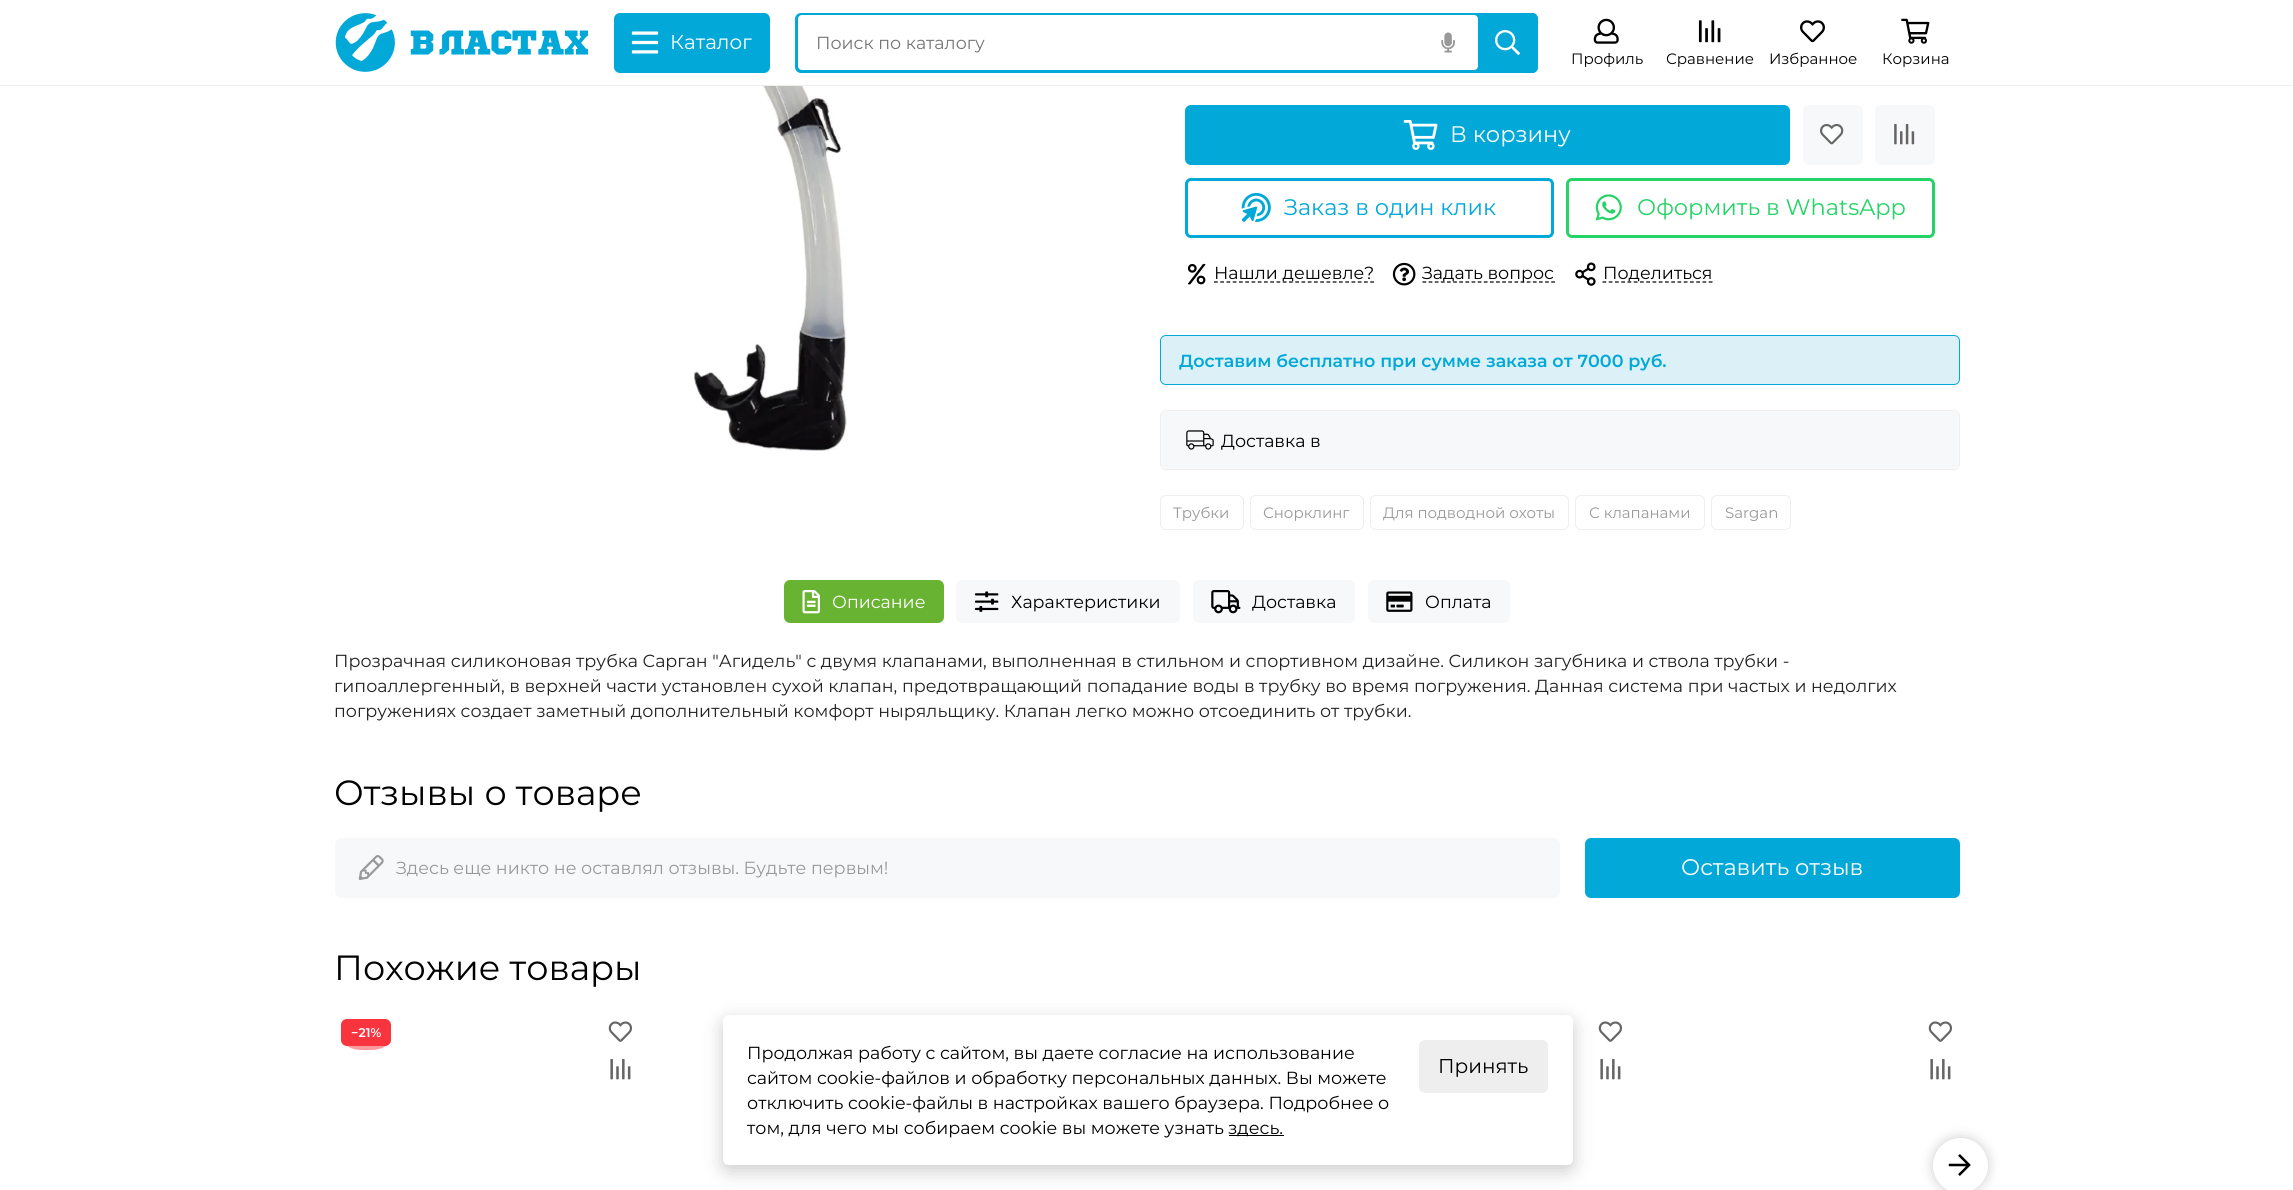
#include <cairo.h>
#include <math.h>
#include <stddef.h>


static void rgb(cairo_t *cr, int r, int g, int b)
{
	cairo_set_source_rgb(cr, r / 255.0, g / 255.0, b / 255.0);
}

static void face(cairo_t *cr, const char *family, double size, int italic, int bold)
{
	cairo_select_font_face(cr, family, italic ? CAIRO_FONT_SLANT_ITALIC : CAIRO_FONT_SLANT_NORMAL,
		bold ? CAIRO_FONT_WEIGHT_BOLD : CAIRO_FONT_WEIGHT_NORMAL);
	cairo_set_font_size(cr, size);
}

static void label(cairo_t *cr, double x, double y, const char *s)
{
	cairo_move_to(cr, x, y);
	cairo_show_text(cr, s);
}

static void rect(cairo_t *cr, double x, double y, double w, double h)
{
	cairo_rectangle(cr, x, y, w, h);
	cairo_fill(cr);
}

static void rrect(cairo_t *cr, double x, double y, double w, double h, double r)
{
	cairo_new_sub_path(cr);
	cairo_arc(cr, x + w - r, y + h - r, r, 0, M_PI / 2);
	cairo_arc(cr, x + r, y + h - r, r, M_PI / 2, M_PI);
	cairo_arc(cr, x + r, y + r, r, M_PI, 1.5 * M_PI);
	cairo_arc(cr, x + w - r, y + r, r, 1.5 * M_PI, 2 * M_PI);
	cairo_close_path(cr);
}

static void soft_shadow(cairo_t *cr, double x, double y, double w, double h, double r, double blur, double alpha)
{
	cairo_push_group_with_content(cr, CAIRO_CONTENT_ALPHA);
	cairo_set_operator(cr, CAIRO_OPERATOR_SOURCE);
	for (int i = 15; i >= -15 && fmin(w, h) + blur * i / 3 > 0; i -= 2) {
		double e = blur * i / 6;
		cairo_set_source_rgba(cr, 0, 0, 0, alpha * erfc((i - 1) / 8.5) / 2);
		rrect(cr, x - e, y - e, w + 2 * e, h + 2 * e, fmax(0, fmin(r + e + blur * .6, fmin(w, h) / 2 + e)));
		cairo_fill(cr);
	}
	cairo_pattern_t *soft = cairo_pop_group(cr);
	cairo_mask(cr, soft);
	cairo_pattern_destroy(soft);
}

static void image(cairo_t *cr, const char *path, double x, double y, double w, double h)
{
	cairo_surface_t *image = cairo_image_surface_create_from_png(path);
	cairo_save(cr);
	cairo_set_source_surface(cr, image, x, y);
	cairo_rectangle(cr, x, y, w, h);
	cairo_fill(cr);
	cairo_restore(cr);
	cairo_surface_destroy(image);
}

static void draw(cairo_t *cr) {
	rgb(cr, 255, 255, 255);
	cairo_paint(cr);
	rgb(cr, 238, 238, 238);
	cairo_new_path(cr);
	cairo_move_to(cr, 0, 85);
	cairo_line_to(cr, 0, 86);
	cairo_line_to(cr, 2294, 86);
	cairo_line_to(cr, 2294, 1);
	cairo_line_to(cr, 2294, 85);
	cairo_close_path(cr);
	cairo_fill(cr);
	image(cr, "image0.png", 335, 13, 253, 59);
	rgb(cr, 2, 168, 215);
	rrect(cr, 614, 13, 156, 60, 6);
	cairo_fill(cr);
	image(cr, "image1.png", 631, 31, 28, 23);
	face(cr, "Montserrat", 20, 0, 0);
	rgb(cr, 255, 255, 255);
	label(cr, 670, 49, "Каталог");
	rgb(cr, 2, 168, 215);
	rrect(cr, 795, 13, 743, 60, 6);
	cairo_fill(cr);
	rgb(cr, 255, 255, 255);
	rrect(cr, 798, 15, 680, 55, 4);
	cairo_fill(cr);
	face(cr, "Montserrat", 17.5, 0, 0);
	rgb(cr, 117, 117, 117);
	label(cr, 816, 49, "Поиск по каталогу");
	image(cr, "image2.png", 1441, 32, 14, 21);
	rgb(cr, 2, 168, 215);
	cairo_new_path(cr);
	cairo_move_to(cr, 1478, 13);
	cairo_line_to(cr, 1532, 13);
	cairo_curve_to(cr, 1535.5, 13, 1538, 15.5, 1538, 19);
	cairo_line_to(cr, 1538, 67);
	cairo_curve_to(cr, 1538, 70.5, 1535.5, 73, 1532, 73);
	cairo_line_to(cr, 1478, 73);
	cairo_close_path(cr);
	cairo_fill(cr);
	image(cr, "image3.png", 1495, 30, 25, 25);
	image(cr, "image4.png", 1593, 18, 26, 26);
	face(cr, "Montserrat", 15, 0, 0);
	rgb(cr, 0, 0, 0);
	label(cr, 1571, 64, "Профиль");
	image(cr, "image5.png", 1698, 20, 23, 23);
	label(cr, 1666, 64, "Сравнение");
	image(cr, "image6.png", 1800, 20, 25, 23);
	label(cr, 1769, 64, "Избранное");
	image(cr, "image7.png", 1901, 18, 29, 26);
	label(cr, 1882, 64, "Корзина");
	image(cr, "image8.png", 694, 86, 153, 365);
	rgb(cr, 2, 168, 215);
	rrect(cr, 1185, 105, 605, 60, 6);
	cairo_fill(cr);
	image(cr, "image9.png", 1403, 120, 35, 30);
	face(cr, "Montserrat", 22.5, 0, 0);
	rgb(cr, 255, 255, 255);
	label(cr, 1450, 142, "В корзину");
	rgb(cr, 247, 248, 250);
	rrect(cr, 1803, 105, 60, 60, 6);
	cairo_fill(cr);
	image(cr, "image10.png", 1820, 124, 24, 21);
	rrect(cr, 1875, 105, 60, 60, 6);
	cairo_fill(cr);
	image(cr, "image11.png", 1893, 123, 22, 22);
	rrect(cr, 1186.5, 179.5, 366, 57, 4.5);
	rgb(cr, 2, 168, 215);
	cairo_set_line_width(cr, 3);
	cairo_stroke(cr);
	image(cr, "image12.png", 1241, 193, 30, 29);
	label(cr, 1284, 215, "Заказ в один клик");
	rrect(cr, 1567.5, 179.5, 366, 57, 4.5);
	rgb(cr, 37, 211, 102);
	cairo_stroke(cr);
	image(cr, "image13.png", 1595, 194, 27, 27);
	label(cr, 1637, 215, "Оформить в WhatsApp");
	image(cr, "image14.png", 1187, 263, 19, 22);
	cairo_new_path(cr);
	cairo_move_to(cr, 1214, 282);
	cairo_line_to(cr, 1374, 282);
	rgb(cr, 0, 0, 0);
	cairo_set_line_width(cr, 1.2);
	cairo_set_dash(cr, (double[]){3.75, 2.5}, 2, 0);
	cairo_stroke(cr);
	face(cr, "Montserrat", 17.5, 0, 0);
	label(cr, 1214, 279, "Нашли дешевле?");
	image(cr, "image15.png", 1392, 262, 24, 24);
	cairo_new_path(cr);
	cairo_move_to(cr, 1422.5, 282);
	cairo_line_to(cr, 1555, 282);
	cairo_set_dash(cr, (double[]){3.75, 2.38}, 2, 0);
	cairo_stroke(cr);
	label(cr, 1422, 279, "Задать вопрос");
	image(cr, "image16.png", 1575, 262, 21, 24);
	cairo_new_path(cr);
	cairo_move_to(cr, 1602.5, 282);
	cairo_line_to(cr, 1712.5, 282);
	cairo_set_dash(cr, (double[]){3.75, 2.5}, 2, 0);
	cairo_stroke(cr);
	label(cr, 1603, 279, "Поделиться");
	rgb(cr, 220, 241, 247);
	rrect(cr, 1160.5, 335.5, 799, 49, 5.5);
	cairo_fill_preserve(cr);
	rgb(cr, 2, 168, 215);
	cairo_set_line_width(cr, 1);
	cairo_set_dash(cr, NULL, 0, 0);
	cairo_stroke(cr);
	face(cr, "Montserrat SemiBold", 17.5, 0, 0);
	label(cr, 1179, 367, "Доставим бесплатно при сумме заказа от 7000 руб.");
	rrect(cr, 1160.5, 410.5, 799, 59, 5.5);
	rgb(cr, 238, 238, 238);
	cairo_stroke(cr);
	rgb(cr, 247, 248, 250);
	cairo_new_path(cr);
	cairo_move_to(cr, 1167, 411);
	cairo_line_to(cr, 1953, 411);
	cairo_curve_to(cr, 1956.5, 411, 1959, 413.5, 1959, 417);
	cairo_line_to(cr, 1959, 469);
	cairo_line_to(cr, 1161, 469);
	cairo_line_to(cr, 1161, 417);
	cairo_curve_to(cr, 1161, 413.5, 1163.5, 411, 1167, 411);
	cairo_close_path(cr);
	cairo_fill(cr);
	image(cr, "image17.png", 1186, 430, 28, 20);
	face(cr, "Montserrat", 17.5, 0, 0);
	rgb(cr, 0, 0, 0);
	label(cr, 1221, 447, "Доставка в");
	rrect(cr, 1160.5, 495.5, 83, 34, 5.5);
	rgb(cr, 238, 238, 238);
	cairo_stroke(cr);
	face(cr, "Montserrat", 15, 0, 0);
	rgb(cr, 153, 153, 153);
	label(cr, 1173, 518, "Трубки");
	rrect(cr, 1250.5, 495.5, 113, 34, 5.5);
	rgb(cr, 238, 238, 238);
	cairo_stroke(cr);
	rgb(cr, 153, 153, 153);
	label(cr, 1263, 518, "Снорклинг");
	rrect(cr, 1370.5, 495.5, 198, 34, 5.5);
	rgb(cr, 238, 238, 238);
	cairo_stroke(cr);
	rgb(cr, 153, 153, 153);
	label(cr, 1383, 518, "Для подводной охоты");
	rrect(cr, 1575.5, 495.5, 129, 34, 5.5);
	rgb(cr, 238, 238, 238);
	cairo_stroke(cr);
	rgb(cr, 153, 153, 153);
	label(cr, 1589, 518, "С клапанами");
	rrect(cr, 1711.5, 495.5, 79, 34, 5.5);
	rgb(cr, 238, 238, 238);
	cairo_stroke(cr);
	rgb(cr, 153, 153, 153);
	label(cr, 1725, 518, "Sargan");
	rgb(cr, 104, 179, 49);
	rrect(cr, 784, 580, 160, 43, 6);
	cairo_fill(cr);
	image(cr, "image18.png", 802, 590, 18, 24);
	face(cr, "Montserrat", 17.5, 0, 0);
	rgb(cr, 255, 255, 255);
	label(cr, 832, 608, "Описание");
	rgb(cr, 247, 248, 250);
	rrect(cr, 956, 580, 224, 43, 6);
	cairo_fill(cr);
	image(cr, "image19.png", 975, 591, 24, 21);
	rgb(cr, 0, 0, 0);
	label(cr, 1011, 608, "Характеристики");
	rgb(cr, 247, 248, 250);
	rrect(cr, 1193, 580, 162, 43, 6);
	cairo_fill(cr);
	image(cr, "image20.png", 1211, 590, 30, 24);
	rgb(cr, 0, 0, 0);
	label(cr, 1252, 608, "Доставка");
	rgb(cr, 247, 248, 250);
	rrect(cr, 1368, 580, 142, 43, 6);
	cairo_fill(cr);
	image(cr, "image21.png", 1386, 591, 27, 21);
	rgb(cr, 0, 0, 0);
	label(cr, 1425, 608, "Оплата");
	rgb(cr, 34, 34, 34);
	label(cr, 334, 667, "Прозрачная силиконовая трубка Сарган \"Агидель\" с двумя клапанами, выполненная в стильном и спортивном дизайне. Силикон загубника и ствола трубки -");
	label(cr, 334, 692, "гипоаллергенный, в верхней части установлен сухой клапан, предотвращающий попадание воды в трубку во время погружения. Данная система при частых и недолгих");
	label(cr, 334, 717, "погружениях создает заметный дополнительный комфорт ныряльщику. Клапан легко можно отсоединить от трубки.");
	face(cr, "Montserrat", 35, 0, 0);
	rgb(cr, 0, 0, 0);
	label(cr, 334, 805, "Отзывы о товаре");
	rgb(cr, 247, 248, 250);
	rrect(cr, 335, 838, 1225, 60, 6);
	cairo_fill(cr);
	image(cr, "image22.png", 358, 855, 26, 25);
	face(cr, "Montserrat", 17.5, 0, 0);
	rgb(cr, 153, 153, 153);
	label(cr, 396, 874, "Здесь еще никто не оставлял отзывы. Будьте первым!");
	rgb(cr, 2, 168, 215);
	rrect(cr, 1585, 838, 375, 60, 6);
	cairo_fill(cr);
	face(cr, "Montserrat", 22.5, 0, 0);
	rgb(cr, 255, 255, 255);
	label(cr, 1681, 875, "Оставить отзыв");
	face(cr, "Montserrat", 35, 0, 0);
	rgb(cr, 0, 0, 0);
	label(cr, 334, 980, "Похожие товары");
	rgb(cr, 248, 53, 62);
	rrect(cr, 341, 1019, 50, 27, 6);
	cairo_fill(cr);
	cairo_set_source_rgba(cr, 0.973, 0.208, 0.243, 0.5);
	cairo_new_path(cr);
	cairo_move_to(cr, 362, 1025);
	cairo_line_to(cr, 371, 1025);
	cairo_curve_to(cr, 381, 1025, 389, 1029, 389, 1035);
	cairo_line_to(cr, 389, 1040);
	cairo_curve_to(cr, 389, 1046, 381, 1050, 371, 1050);
	cairo_line_to(cr, 362, 1050);
	cairo_curve_to(cr, 352, 1050, 344, 1046, 344, 1040);
	cairo_line_to(cr, 344, 1035);
	cairo_curve_to(cr, 344, 1029, 352, 1025, 362, 1025);
	cairo_close_path(cr);
	cairo_fill(cr);
	face(cr, "Montserrat SemiBold", 12.5, 0, 0);
	rgb(cr, 255, 255, 255);
	label(cr, 351, 1037, "−21%");
	image(cr, "image23.png", 608, 1021, 25, 21);
	image(cr, "image24.png", 610, 1058, 21, 22);
	image(cr, "image23.png", 1598, 1021, 25, 21);
	image(cr, "image24.png", 1600, 1058, 21, 22);
	image(cr, "image23.png", 1928, 1021, 25, 21);
	image(cr, "image24.png", 1930, 1058, 21, 22);
	rgb(cr, 0, 0, 0);
	soft_shadow(cr, 1933, 1138, 55, 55, 27.5, 6, 0.2);
	rgb(cr, 255, 255, 255);
	cairo_arc(cr, 1960.5, 1165.5, 27.5, 0, 2 * M_PI);
	cairo_fill(cr);
	image(cr, "image25.png", 1948, 1154, 23, 22);
	rgb(cr, 0, 0, 0);
	soft_shadow(cr, 723, 1021, 850, 150, 6, 9.5, 0.2);
	rgb(cr, 255, 255, 255);
	rrect(cr, 723, 1015, 850, 150, 6);
	cairo_fill(cr);
	face(cr, "Montserrat", 17.5, 0, 0);
	rgb(cr, 0, 0, 0);
	label(cr, 747, 1059, "Продолжая работу с сайтом, вы даете согласие на использование");
	label(cr, 747, 1084, "сайтом cookie-файлов и обработку персональных данных. Вы можете");
	label(cr, 747, 1109, "отключить cookie-файлы в настройках вашего браузера. Подробнее о");
	label(cr, 747, 1134, "том, для чего мы собираем cookie вы можете узнать");
	rect(cr, 1229, 1135, 55, 1);
	label(cr, 1228, 1134, "здесь.");
	rgb(cr, 238, 238, 238);
	rrect(cr, 1419, 1040, 129, 53, 6);
	cairo_fill(cr);
	face(cr, "Montserrat", 20, 0, 0);
	rgb(cr, 0, 0, 0);
	label(cr, 1438, 1073, "Принять");
}

int main(void) {
	cairo_surface_t *surface = cairo_image_surface_create(CAIRO_FORMAT_RGB24, 2293, 1190);
	cairo_t *cr = cairo_create(surface);
	cairo_font_options_t *options = cairo_font_options_create();
	cairo_font_options_set_hint_metrics(options, CAIRO_HINT_METRICS_OFF);
	cairo_font_options_set_hint_style(options, CAIRO_HINT_STYLE_NONE);
	cairo_set_font_options(cr, options);
	cairo_set_miter_limit(cr, 4);
	draw(cr);
	cairo_surface_write_to_png(surface, "render.png");
	cairo_font_options_destroy(options);
	cairo_destroy(cr);
	cairo_surface_destroy(surface);
	return 0;
}
